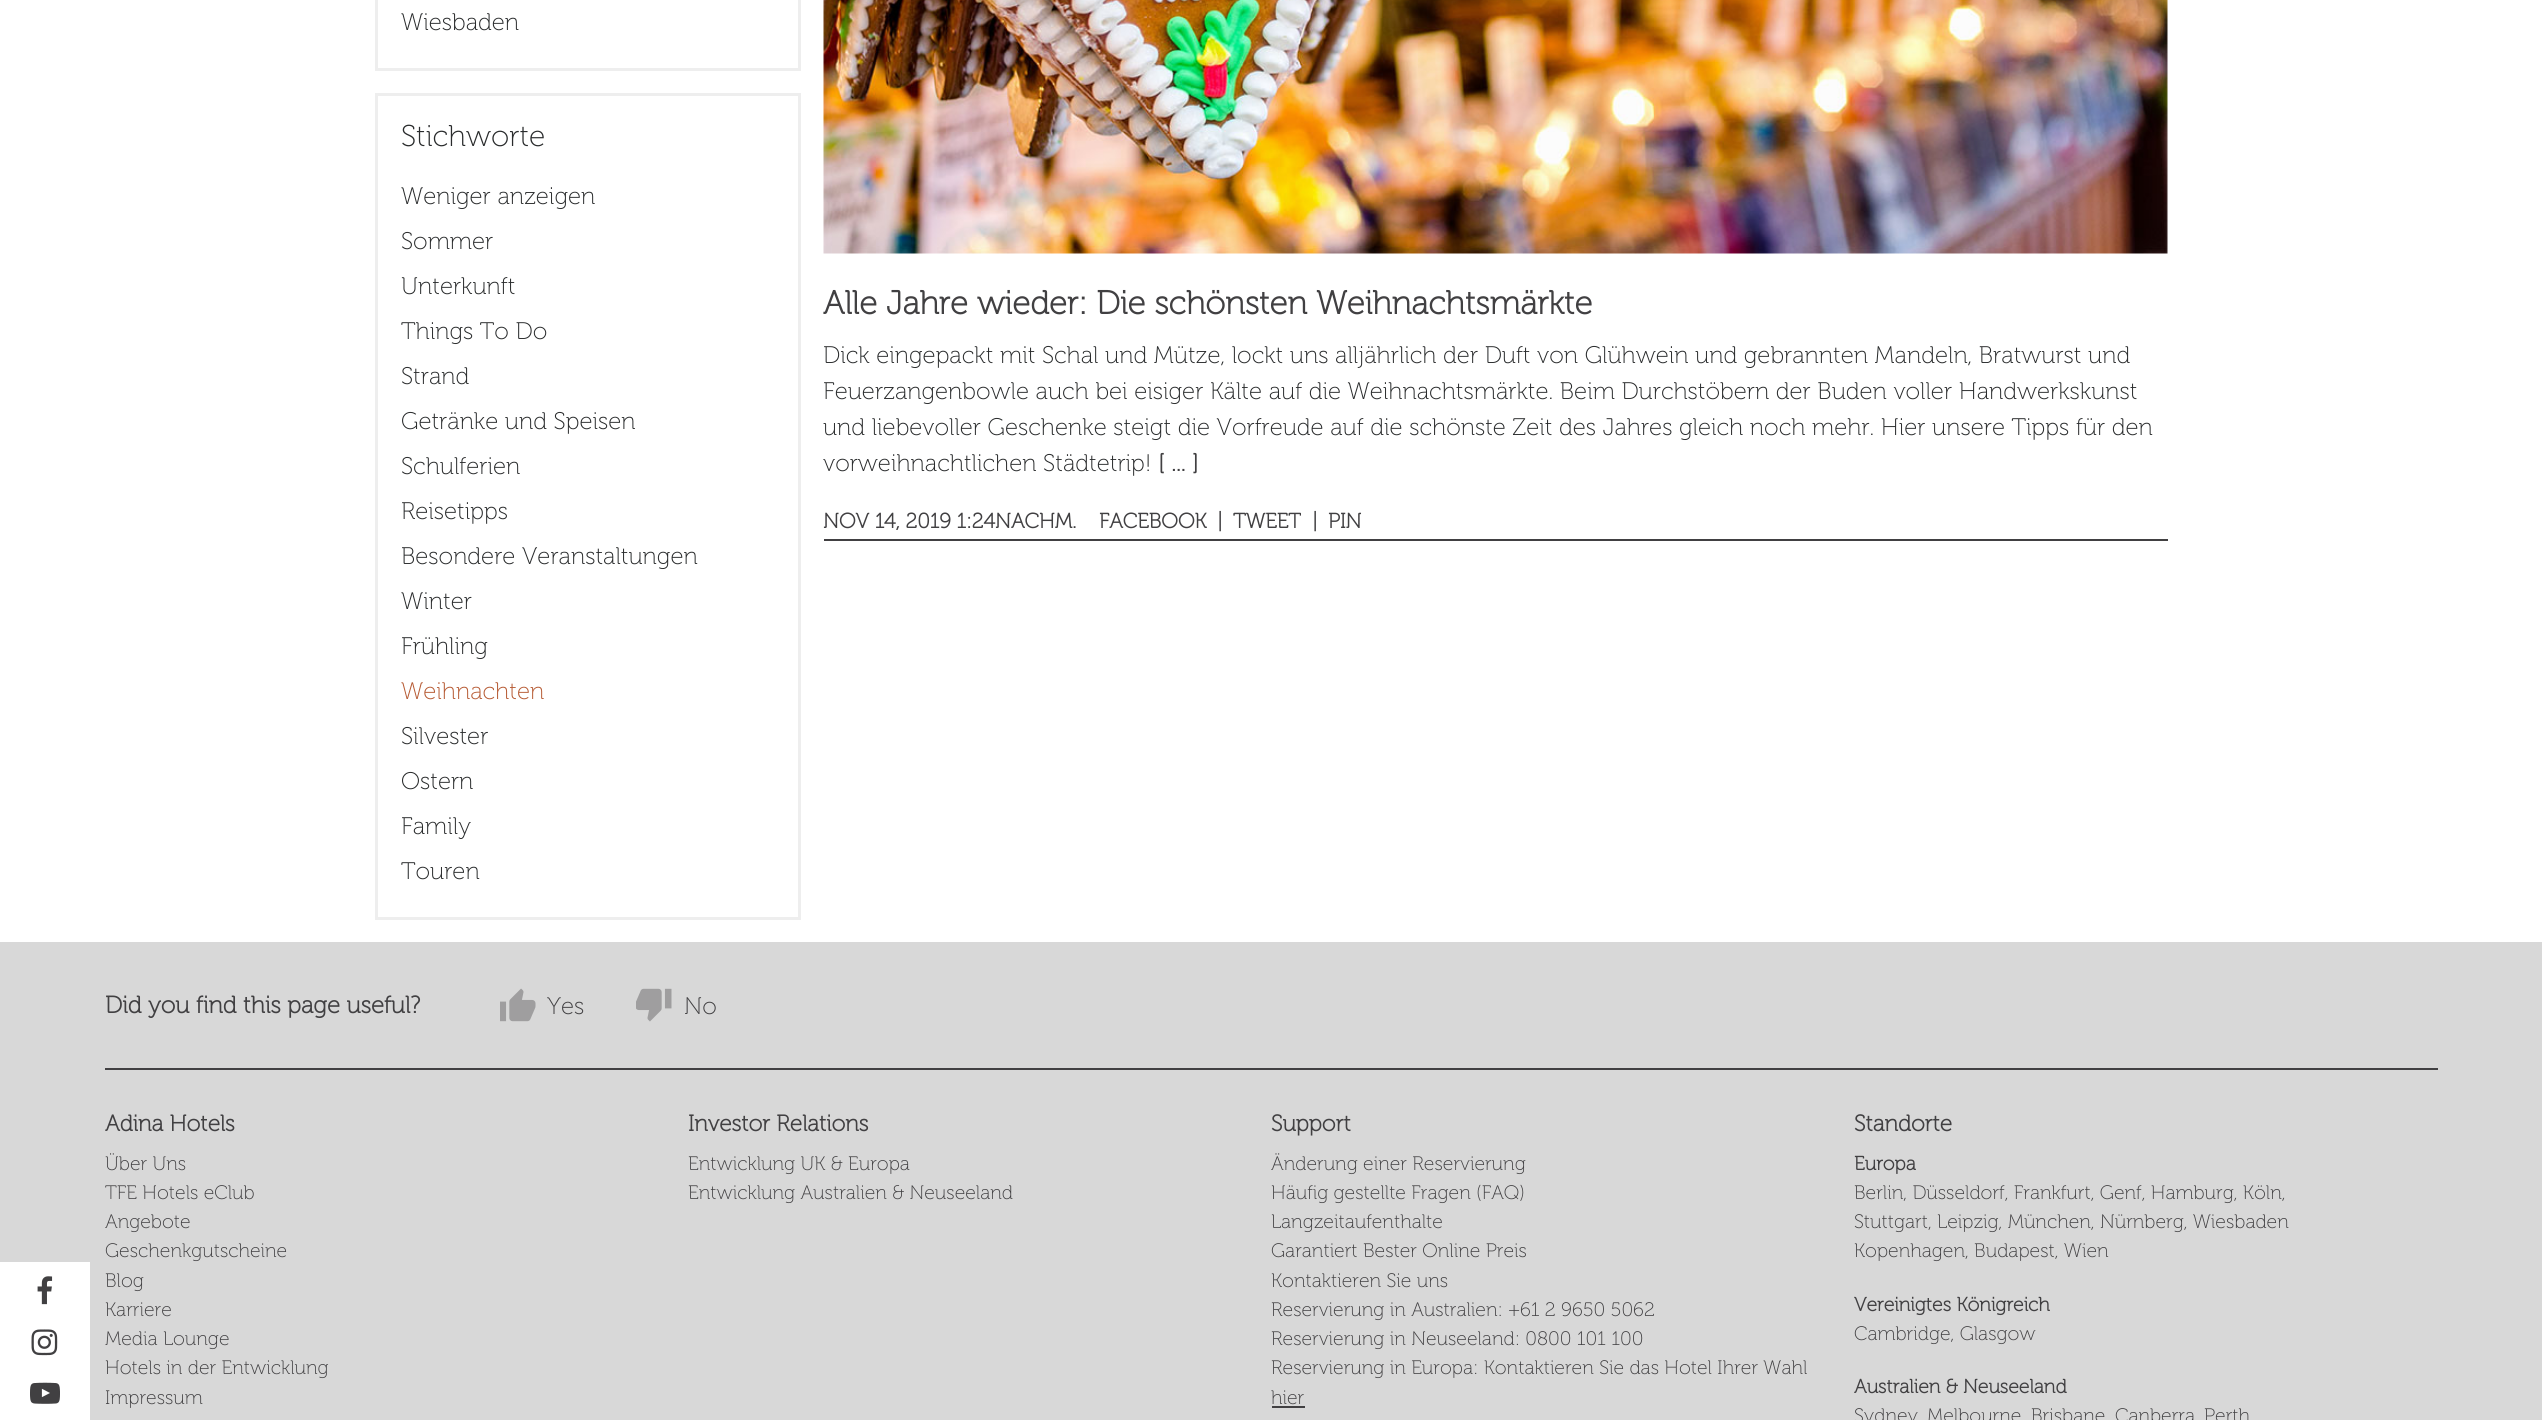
#include <cairo.h>
#include <math.h>
#include <stddef.h>


static void rgb(cairo_t *cr, int r, int g, int b)
{
	cairo_set_source_rgb(cr, r / 255.0, g / 255.0, b / 255.0);
}

static void face(cairo_t *cr, const char *family, double size, int italic, int bold)
{
	cairo_select_font_face(cr, family, italic ? CAIRO_FONT_SLANT_ITALIC : CAIRO_FONT_SLANT_NORMAL,
		bold ? CAIRO_FONT_WEIGHT_BOLD : CAIRO_FONT_WEIGHT_NORMAL);
	cairo_set_font_size(cr, size);
}

static void label(cairo_t *cr, double x, double y, const char *s)
{
	cairo_move_to(cr, x, y);
	cairo_show_text(cr, s);
}

static void rect(cairo_t *cr, double x, double y, double w, double h)
{
	cairo_rectangle(cr, x, y, w, h);
	cairo_fill(cr);
}

static void image(cairo_t *cr, const char *path, double x, double y, double w, double h)
{
	cairo_surface_t *image = cairo_image_surface_create_from_png(path);
	cairo_save(cr);
	cairo_set_source_surface(cr, image, x, y);
	cairo_rectangle(cr, x, y, w, h);
	cairo_fill(cr);
	cairo_restore(cr);
	cairo_surface_destroy(image);
}

static void draw(cairo_t *cr) {
	rgb(cr, 255, 255, 255);
	cairo_paint(cr);
	cairo_rectangle(cr, 376.5, -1.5, 423, 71);
	rgb(cr, 238, 238, 238);
	cairo_set_line_width(cr, 3);
	cairo_stroke(cr);
	face(cr, "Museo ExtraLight", 24, 0, 0);
	rgb(cr, 41, 43, 44);
	label(cr, 401, 30, "Wiesbaden");
	cairo_rectangle(cr, 376.5, 94.5, 423, 824);
	rgb(cr, 238, 238, 238);
	cairo_stroke(cr);
	face(cr, "Museo ExtraLight", 30, 0, 0);
	rgb(cr, 41, 43, 44);
	label(cr, 401, 146, "Stichworte");
	face(cr, "Museo ExtraLight", 24, 0, 0);
	label(cr, 401, 204, "Weniger anzeigen");
	label(cr, 401, 249, "Sommer");
	label(cr, 401, 294, "Unterkunft");
	label(cr, 401, 339, "Things To Do");
	label(cr, 401, 384, "Strand");
	label(cr, 401, 429, "Getränke und Speisen");
	label(cr, 401, 474, "Schulferien");
	label(cr, 401, 519, "Reisetipps");
	label(cr, 401, 564, "Besondere Veranstaltungen");
	label(cr, 401, 609, "Winter");
	label(cr, 401, 654, "Frühling");
	rgb(cr, 182, 90, 51);
	label(cr, 401, 699, "Weihnachten");
	rgb(cr, 41, 43, 44);
	label(cr, 401, 744, "Silvester");
	label(cr, 401, 789, "Ostern");
	label(cr, 401, 834, "Family");
	label(cr, 401, 879, "Touren");
	rgb(cr, 65, 64, 66);
	rect(cr, 824, 539, 1344, 2);
	image(cr, "image0.png", 823, 0, 1345, 254);
	face(cr, "Museo", 33, 0, 1);
	label(cr, 823, 314, "Alle Jahre wieder: Die schönsten Weihnachtsmärkte");
	face(cr, "Museo ExtraLight", 24, 0, 0);
	rgb(cr, 41, 43, 44);
	label(cr, 823, 363, "Dick eingepackt mit Schal und Mütze, lockt uns alljährlich der Duft von Glühwein und gebrannten Mandeln, Bratwurst und");
	label(cr, 823, 399, "Feuerzangenbowle auch bei eisiger Kälte auf die Weihnachtsmärkte. Beim Durchstöbern der Buden voller Handwerkskunst");
	label(cr, 823, 435, "und liebevoller Geschenke steigt die Vorfreude auf die schönste Zeit des Jahres gleich noch mehr. Hier unsere Tipps für den");
	label(cr, 823, 471, "vorweihnachtlichen Städtetrip!");
	face(cr, "Museo", 24, 0, 1);
	rgb(cr, 65, 64, 66);
	label(cr, 1158, 471, "[ ... ]");
	face(cr, "Museo", 21, 0, 1);
	label(cr, 823, 528, "NOV 14, 2019 1:24NACHM.");
	label(cr, 1099, 528, "FACEBOOK");
	label(cr, 1217, 528, "|");
	label(cr, 1233, 528, "TWEET");
	label(cr, 1312, 528, "|");
	label(cr, 1328, 528, "PIN");
	rgb(cr, 216, 216, 216);
	rect(cr, 0, 942, 2542, 478);
	rgb(cr, 65, 64, 66);
	rect(cr, 105, 1068, 2333, 2);
	face(cr, "Museo", 24, 0, 1);
	label(cr, 105, 1013, "Did you find this page useful?");
	image(cr, "image1.png", 500, 988, 36, 34);
	face(cr, "Museo ExtraLight", 24, 0, 0);
	label(cr, 547, 1014, "Yes");
	image(cr, "image2.png", 636, 988, 36, 34);
	label(cr, 684, 1014, "No");
	rgb(cr, 255, 255, 255);
	rect(cr, 0, 1262, 90, 158);
	image(cr, "image3.png", 37, 1276, 16, 29);
	image(cr, "image4.png", 31, 1329, 27, 27);
	image(cr, "image5.png", 30, 1382, 30, 22);
	face(cr, "Museo", 22.75, 0, 1);
	rgb(cr, 65, 64, 66);
	label(cr, 105, 1131, "Adina Hotels");
	face(cr, "Museo ExtraLight", 19.5, 0, 0);
	label(cr, 105, 1170, "Über Uns");
	label(cr, 105, 1199, "TFE Hotels eClub");
	label(cr, 105, 1228, "Angebote");
	label(cr, 105, 1257, "Geschenkgutscheine");
	label(cr, 105, 1287, "Blog");
	label(cr, 105, 1316, "Karriere");
	label(cr, 105, 1345, "Media Lounge");
	label(cr, 105, 1374, "Hotels in der Entwicklung");
	label(cr, 105, 1404, "Impressum");
	face(cr, "Museo", 22.75, 0, 1);
	label(cr, 688, 1131, "Investor Relations");
	face(cr, "Museo ExtraLight", 19.5, 0, 0);
	label(cr, 688, 1170, "Entwicklung UK & Europa");
	label(cr, 688, 1199, "Entwicklung Australien & Neuseeland");
	face(cr, "Museo", 22.75, 0, 1);
	label(cr, 1271, 1131, "Support");
	face(cr, "Museo ExtraLight", 19.5, 0, 0);
	label(cr, 1271, 1170, "Änderung einer Reservierung");
	label(cr, 1271, 1199, "Häufig gestellte Fragen (FAQ)");
	label(cr, 1271, 1228, "Langzeitaufenthalte");
	label(cr, 1271, 1257, "Garantiert Bester Online Preis");
	label(cr, 1271, 1287, "Kontaktieren Sie uns");
	label(cr, 1271, 1316, "Reservierung in Australien: +61 2 9650 5062");
	label(cr, 1271, 1345, "Reservierung in Neuseeland: 0800 101 100");
	label(cr, 1271, 1374, "Reservierung in Europa: Kontaktieren Sie das Hotel Ihrer Wahl");
	label(cr, 1271, 1404, "hier");
	rect(cr, 1272, 1406, 33, 2);
	face(cr, "Museo", 22.75, 0, 1);
	label(cr, 1854, 1131, "Standorte");
	face(cr, "Museo", 19.5, 0, 1);
	label(cr, 1854, 1170, "Europa");
	face(cr, "Museo ExtraLight", 19.5, 0, 0);
	label(cr, 1854, 1199, "Berlin, Düsseldorf, Frankfurt, Genf, Hamburg, Köln,");
	label(cr, 1854, 1228, "Stuttgart, Leipzig, München, Nürnberg, Wiesbaden");
	label(cr, 1854, 1257, "Kopenhagen, Budapest, Wien");
	face(cr, "Museo", 19.5, 0, 1);
	label(cr, 1854, 1311, "Vereinigtes Königreich");
	face(cr, "Museo ExtraLight", 19.5, 0, 0);
	label(cr, 1854, 1340, "Cambridge, Glasgow");
	face(cr, "Museo", 19.5, 0, 1);
	label(cr, 1854, 1393, "Australien & Neuseeland");
	face(cr, "Museo ExtraLight", 19.5, 0, 0);
	label(cr, 1854, 1422, "Sydney");
	label(cr, 1927, 1422, "Melbourne");
	label(cr, 2031, 1422, "Brisbane");
	label(cr, 2115, 1422, "Canberra");
	label(cr, 2204, 1422, "Perth");
}

int main(void) {
	cairo_surface_t *surface = cairo_image_surface_create(CAIRO_FORMAT_RGB24, 2542, 1420);
	cairo_t *cr = cairo_create(surface);
	cairo_font_options_t *options = cairo_font_options_create();
	cairo_font_options_set_hint_metrics(options, CAIRO_HINT_METRICS_OFF);
	cairo_font_options_set_hint_style(options, CAIRO_HINT_STYLE_NONE);
	cairo_set_font_options(cr, options);
	cairo_set_miter_limit(cr, 4);
	draw(cr);
	cairo_surface_write_to_png(surface, "render.png");
	cairo_font_options_destroy(options);
	cairo_destroy(cr);
	cairo_surface_destroy(surface);
	return 0;
}
